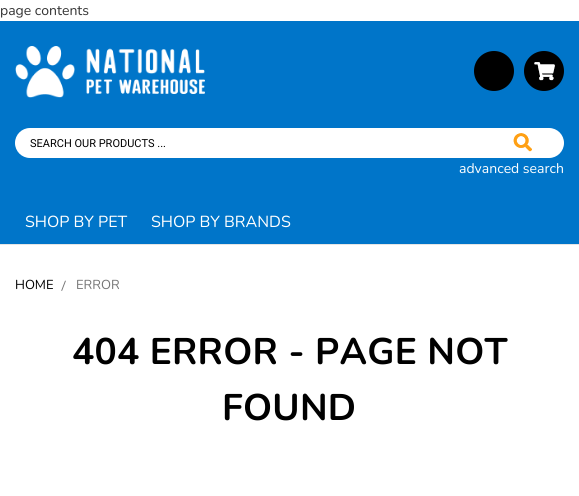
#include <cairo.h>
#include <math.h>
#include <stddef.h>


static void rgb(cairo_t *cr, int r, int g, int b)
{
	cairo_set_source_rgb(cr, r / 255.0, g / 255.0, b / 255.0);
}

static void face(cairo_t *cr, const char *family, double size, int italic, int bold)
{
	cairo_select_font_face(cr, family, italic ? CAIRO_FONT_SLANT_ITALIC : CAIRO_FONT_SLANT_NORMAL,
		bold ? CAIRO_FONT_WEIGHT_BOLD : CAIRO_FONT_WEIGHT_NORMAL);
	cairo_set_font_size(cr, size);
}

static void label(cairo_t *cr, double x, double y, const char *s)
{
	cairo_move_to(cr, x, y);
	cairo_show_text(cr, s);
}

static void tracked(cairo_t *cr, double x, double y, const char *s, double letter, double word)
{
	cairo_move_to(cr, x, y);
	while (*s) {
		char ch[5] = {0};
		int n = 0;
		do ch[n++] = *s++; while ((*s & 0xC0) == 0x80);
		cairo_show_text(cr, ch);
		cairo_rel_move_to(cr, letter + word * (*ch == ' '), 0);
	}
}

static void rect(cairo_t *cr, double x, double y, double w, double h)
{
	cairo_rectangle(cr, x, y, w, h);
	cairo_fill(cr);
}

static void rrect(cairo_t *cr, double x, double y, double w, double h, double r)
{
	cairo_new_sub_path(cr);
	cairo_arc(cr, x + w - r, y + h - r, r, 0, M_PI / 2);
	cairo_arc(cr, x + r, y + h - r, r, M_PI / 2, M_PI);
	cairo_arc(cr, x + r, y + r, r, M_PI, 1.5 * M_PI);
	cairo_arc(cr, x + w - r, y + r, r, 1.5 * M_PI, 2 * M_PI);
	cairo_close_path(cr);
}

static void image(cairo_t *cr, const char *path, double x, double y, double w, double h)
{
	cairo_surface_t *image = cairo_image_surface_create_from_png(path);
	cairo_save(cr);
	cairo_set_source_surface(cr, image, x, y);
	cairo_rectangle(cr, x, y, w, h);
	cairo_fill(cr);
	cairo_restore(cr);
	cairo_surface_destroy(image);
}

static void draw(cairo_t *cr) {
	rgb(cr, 255, 255, 255);
	cairo_paint(cr);
	face(cr, "Nunito", 14, 0, 0);
	rgb(cr, 51, 51, 51);
	label(cr, 0, 15, "page contents");
	rgb(cr, 0, 117, 201);
	rect(cr, 0, 21, 579, 223);
	rgb(cr, 229, 229, 229);
	rect(cr, 0, 244, 579, 1);
	image(cr, "image0.png", 15, 46, 190, 52);
	rgb(cr, 0, 0, 0);
	cairo_arc(cr, 494, 71, 20, 0, 2 * M_PI);
	cairo_fill(cr);
	cairo_arc(cr, 544, 71, 20, 0, 2 * M_PI);
	cairo_fill(cr);
	image(cr, "image1.png", 534, 62, 21, 19);
	rgb(cr, 255, 255, 255);
	rrect(cr, 15, 128, 549, 30, 15);
	cairo_fill(cr);
	face(cr, "Roboto", 11, 0, 0);
	rgb(cr, 0, 0, 0);
	label(cr, 30, 147, "SEARCH OUR PRODUCTS ...");
	image(cr, "image2.png", 513, 133, 19, 19);
	face(cr, "Nunito", 14, 0, 0);
	rgb(cr, 255, 255, 255);
	label(cr, 459, 173, "advanced search");
	face(cr, "Nunito", 16, 0, 0);
	label(cr, 25, 227, "SHOP BY PET");
	label(cr, 151, 227, "SHOP BY BRANDS");
	face(cr, "Nunito", 13, 0, 0);
	rgb(cr, 0, 0, 0);
	label(cr, 15, 289, "HOME");
	face(cr, "Roboto", 13, 0, 0);
	rgb(cr, 117, 117, 117);
	label(cr, 61, 290, "/");
	face(cr, "Nunito", 13, 0, 0);
	label(cr, 76, 289, "ERROR");
	face(cr, "Nunito", 37, 0, 1);
	rgb(cr, 0, 0, 0);
	tracked(cr, 72, 364, "404 ERROR - PAGE NOT", 0.25, 0);
	tracked(cr, 222, 420, "FOUND", 0.25, 0);
}

int main(void) {
	cairo_surface_t *surface = cairo_image_surface_create(CAIRO_FORMAT_RGB24, 579, 496);
	cairo_t *cr = cairo_create(surface);
	cairo_font_options_t *options = cairo_font_options_create();
	cairo_font_options_set_hint_metrics(options, CAIRO_HINT_METRICS_OFF);
	cairo_font_options_set_hint_style(options, CAIRO_HINT_STYLE_NONE);
	cairo_set_font_options(cr, options);
	cairo_set_miter_limit(cr, 4);
	draw(cr);
	cairo_surface_write_to_png(surface, "render.png");
	cairo_font_options_destroy(options);
	cairo_destroy(cr);
	cairo_surface_destroy(surface);
	return 0;
}
